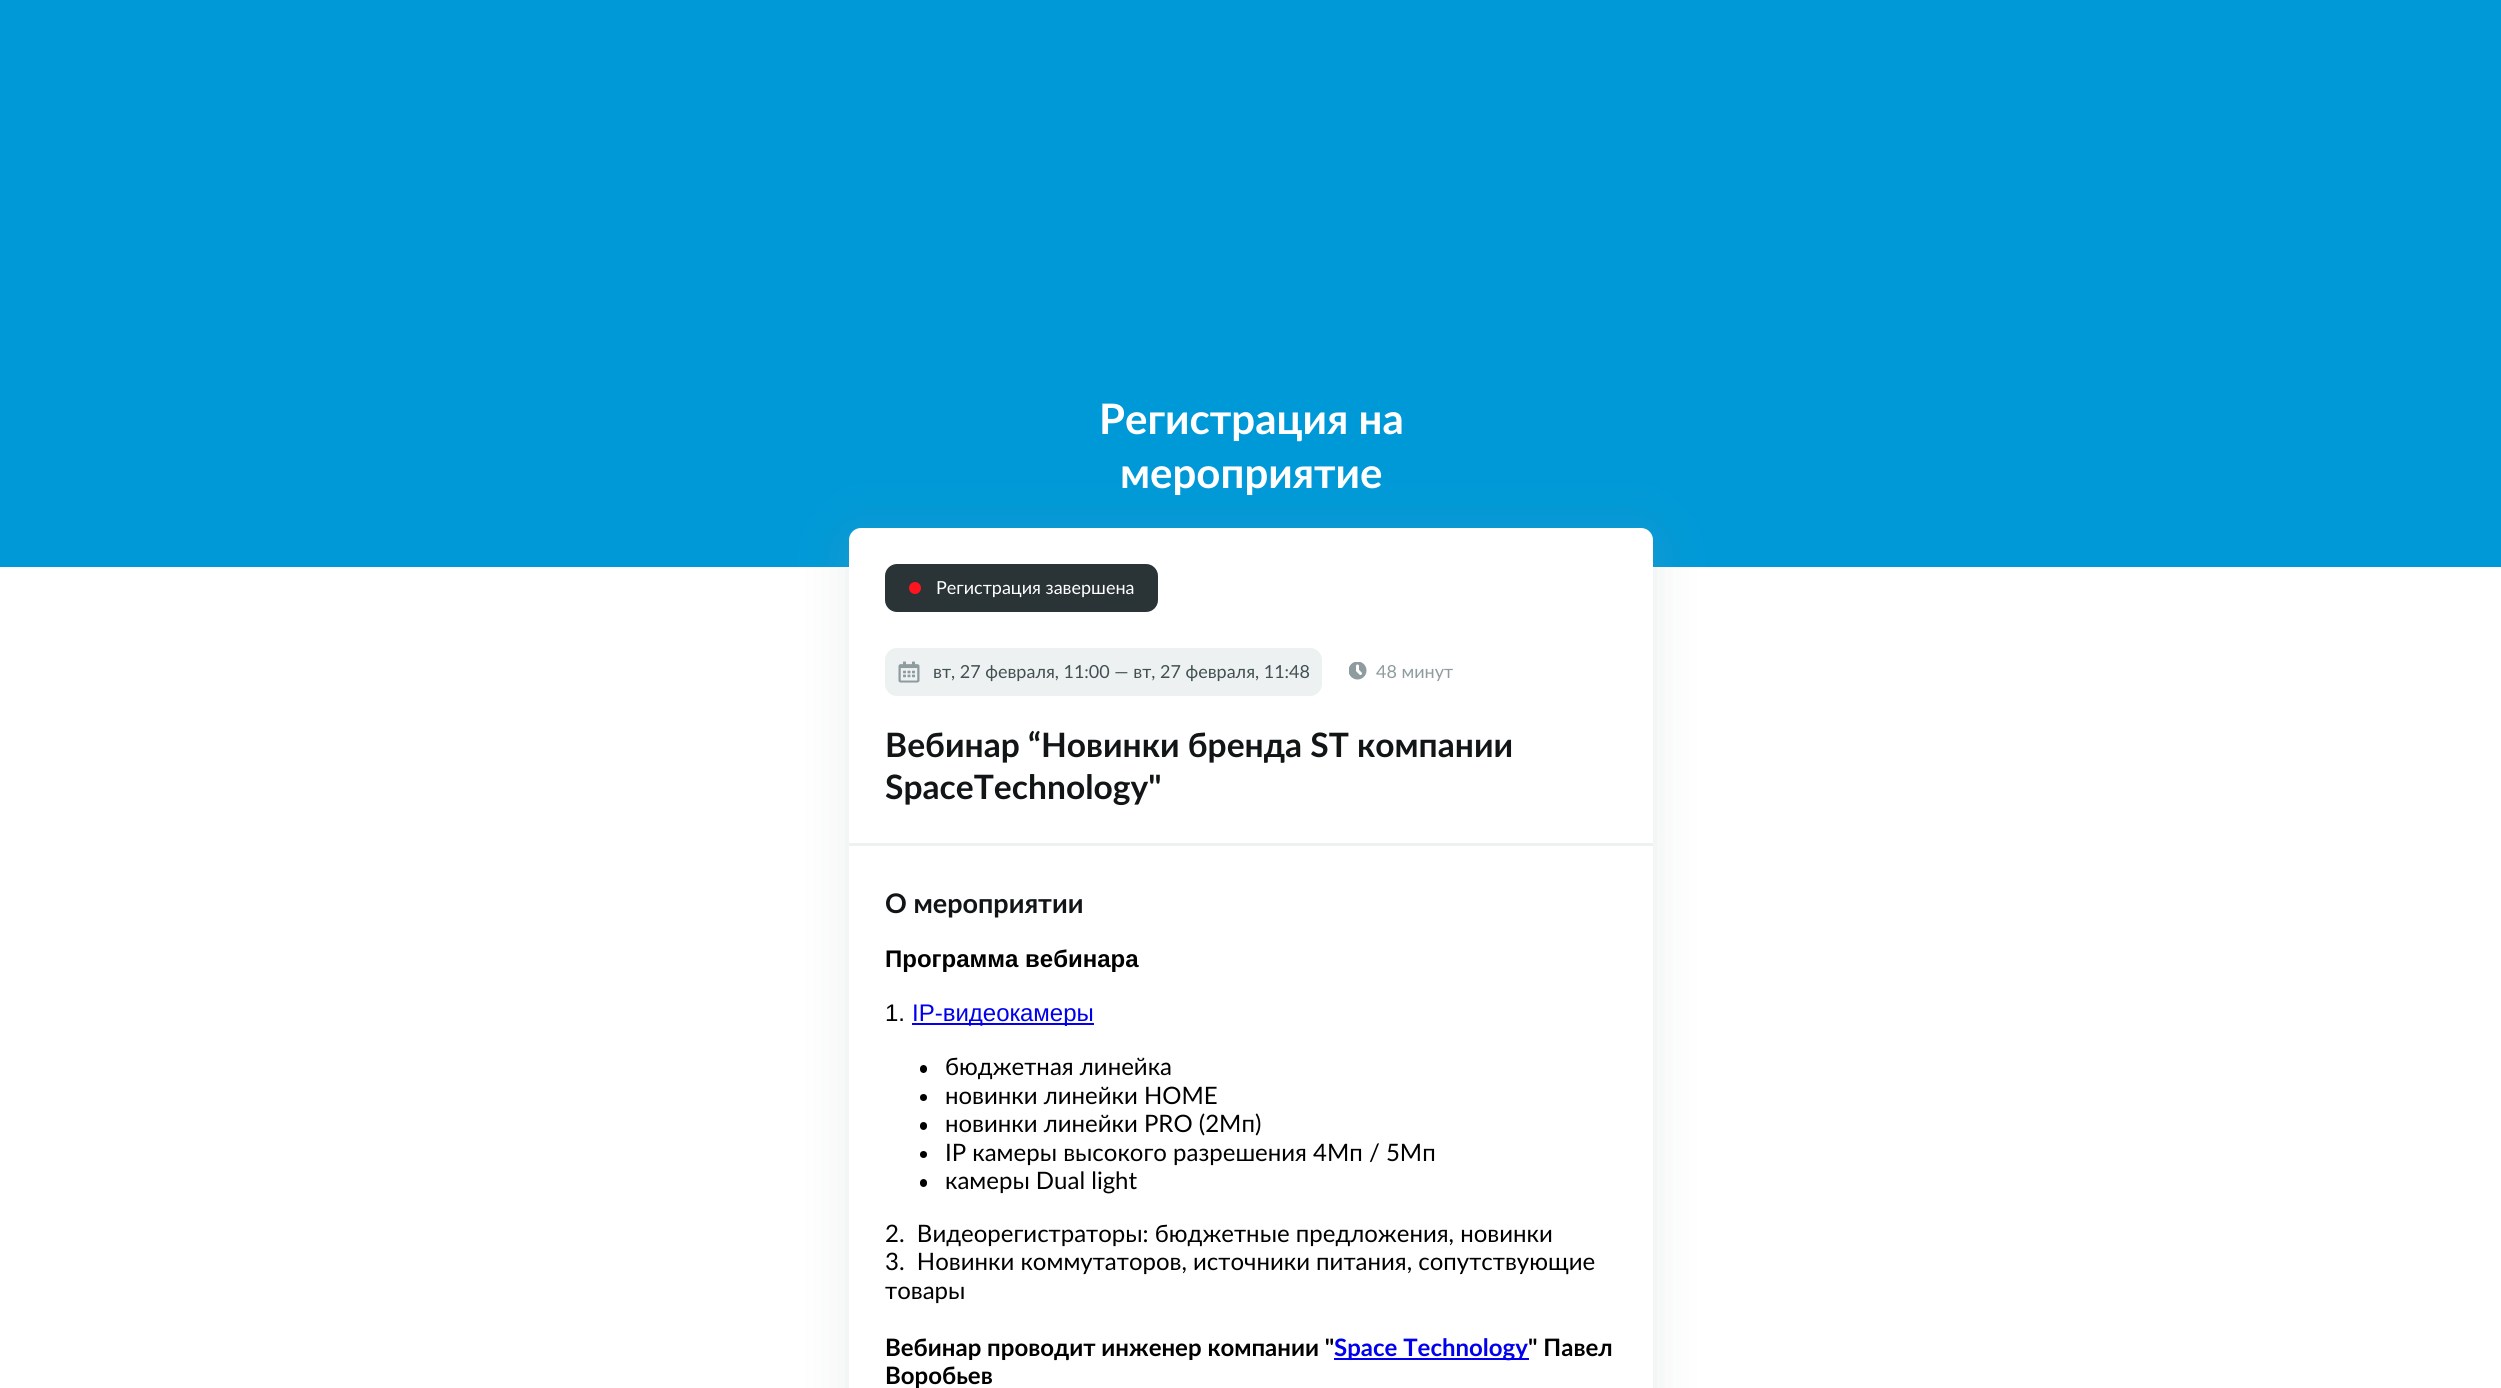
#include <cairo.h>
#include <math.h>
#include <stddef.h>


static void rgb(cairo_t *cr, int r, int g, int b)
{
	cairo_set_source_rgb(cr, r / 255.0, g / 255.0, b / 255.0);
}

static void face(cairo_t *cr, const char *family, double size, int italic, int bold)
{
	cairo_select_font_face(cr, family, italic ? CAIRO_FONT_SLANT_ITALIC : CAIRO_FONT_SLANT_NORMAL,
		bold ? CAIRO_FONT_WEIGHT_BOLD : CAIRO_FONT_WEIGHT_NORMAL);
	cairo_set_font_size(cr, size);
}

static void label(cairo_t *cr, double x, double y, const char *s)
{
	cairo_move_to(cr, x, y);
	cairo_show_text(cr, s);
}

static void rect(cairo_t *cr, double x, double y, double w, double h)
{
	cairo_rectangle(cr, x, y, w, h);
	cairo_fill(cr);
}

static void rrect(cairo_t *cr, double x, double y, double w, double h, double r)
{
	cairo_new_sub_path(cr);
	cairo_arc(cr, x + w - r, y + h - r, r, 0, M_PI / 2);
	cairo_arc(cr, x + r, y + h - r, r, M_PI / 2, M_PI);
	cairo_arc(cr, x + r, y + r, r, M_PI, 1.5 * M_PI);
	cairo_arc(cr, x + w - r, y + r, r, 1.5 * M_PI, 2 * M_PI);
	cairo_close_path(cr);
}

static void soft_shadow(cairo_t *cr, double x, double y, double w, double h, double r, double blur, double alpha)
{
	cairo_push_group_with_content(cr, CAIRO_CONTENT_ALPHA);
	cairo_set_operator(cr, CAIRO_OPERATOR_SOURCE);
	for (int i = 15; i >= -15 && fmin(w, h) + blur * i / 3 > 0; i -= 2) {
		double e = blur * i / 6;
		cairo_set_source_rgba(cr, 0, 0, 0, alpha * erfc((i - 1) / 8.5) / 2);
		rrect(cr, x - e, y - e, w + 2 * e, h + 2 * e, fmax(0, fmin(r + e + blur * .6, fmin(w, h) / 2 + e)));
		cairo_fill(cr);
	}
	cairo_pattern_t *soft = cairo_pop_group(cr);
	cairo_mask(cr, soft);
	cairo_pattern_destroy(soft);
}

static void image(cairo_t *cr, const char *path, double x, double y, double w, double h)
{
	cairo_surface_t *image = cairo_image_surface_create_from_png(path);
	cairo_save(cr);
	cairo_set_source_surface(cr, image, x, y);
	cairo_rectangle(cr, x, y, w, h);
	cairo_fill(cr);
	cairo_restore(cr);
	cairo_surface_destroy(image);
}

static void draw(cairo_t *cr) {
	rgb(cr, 255, 255, 255);
	cairo_paint(cr);
	rgb(cr, 0, 153, 215);
	rect(cr, 0, 0, 2501, 567);
	face(cr, "Lato", 42, 0, 1);
	rgb(cr, 255, 255, 255);
	label(cr, 1099, 434, "Регистрация на");
	rgb(cr, 142, 156, 160);
	soft_shadow(cr, 849, 534, 804, 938, 12, 24, 0.2);
	rgb(cr, 255, 255, 255);
	label(cr, 1120, 488, "мероприятие");
	rrect(cr, 849, 528, 804, 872, 12);
	cairo_fill(cr);
	rgb(cr, 42, 51, 53);
	rrect(cr, 885, 564, 273, 48, 12);
	cairo_fill(cr);
	rgb(cr, 255, 21, 31);
	cairo_arc(cr, 915, 588, 6, 0, 2 * M_PI);
	cairo_fill(cr);
	face(cr, "Lato", 18, 0, 0);
	rgb(cr, 255, 255, 255);
	label(cr, 936, 594, "Регистрация завершена");
	rgb(cr, 237, 241, 241);
	rrect(cr, 885, 648, 437, 48, 12);
	cairo_fill(cr);
	image(cr, "image0.png", 898, 661, 22, 22);
	rgb(cr, 66, 80, 82);
	label(cr, 933, 678, "вт, 27 февраля, 11:00 — вт, 27 февраля, 11:48");
	image(cr, "image1.png", 1349, 662, 18, 18);
	rgb(cr, 142, 156, 160);
	label(cr, 1376, 678, "48 минут");
	face(cr, "Lato", 33.6, 0, 1);
	rgb(cr, 18, 21, 22);
	label(cr, 885, 757, "Вебинар “Новинки бренда ST компании");
	label(cr, 885, 799, "SpaceTechnology\"");
	rgb(cr, 237, 241, 241);
	rect(cr, 849, 843, 804, 3);
	face(cr, "Lato", 27, 0, 1);
	rgb(cr, 18, 21, 22);
	label(cr, 885, 913, "О мероприятии");
	face(cr, "Liberation Sans", 24, 0, 1);
	rgb(cr, 0, 0, 0);
	label(cr, 885, 967, "Программа вебинара");
	face(cr, "Liberation Sans", 24, 0, 0);
	label(cr, 885, 1021, "1.");
	rgb(cr, 0, 0, 238);
	rect(cr, 912, 1023, 182, 2);
	label(cr, 912, 1021, "IP-видеокамеры");
	rgb(cr, 0, 0, 0);
	rrect(cr, 920, 1065, 7, 8, 3.5);
	cairo_fill(cr);
	face(cr, "Lato", 24, 0, 0);
	label(cr, 945, 1075, "бюджетная линейка");
	cairo_new_path(cr);
	cairo_arc(cr, 923.5, 1097.5, 3.5, 0, 2 * M_PI);
	cairo_fill(cr);
	label(cr, 945, 1104, "новинки линейки HOME");
	rrect(cr, 920, 1122, 7, 8, 3.5);
	cairo_fill(cr);
	label(cr, 945, 1132, "новинки линейки PRO (2Мп)");
	cairo_new_path(cr);
	cairo_arc(cr, 923.5, 1154.5, 3.5, 0, 2 * M_PI);
	cairo_fill(cr);
	label(cr, 945, 1161, "IP камеры высокого разрешения 4Мп / 5Мп");
	rrect(cr, 920, 1179, 7, 8, 3.5);
	cairo_fill(cr);
	label(cr, 945, 1189, "камеры Dual light");
	label(cr, 885, 1242, "2.  Видеорегистраторы: бюджетные предложения, новинки");
	label(cr, 885, 1270, "3.  Новинки коммутаторов, источники питания, сопутствующие");
	label(cr, 885, 1299, "товары");
	face(cr, "Lato", 24, 0, 1);
	label(cr, 885, 1356, "Вебинар проводит инженер компании \"");
	rgb(cr, 0, 0, 238);
	rect(cr, 1334, 1358, 195, 2);
	label(cr, 1334, 1356, "Space Technology");
	rgb(cr, 0, 0, 0);
	label(cr, 1528, 1356, "\" Павел");
	label(cr, 885, 1384, "Воробьев");
}

int main(void) {
	cairo_surface_t *surface = cairo_image_surface_create(CAIRO_FORMAT_RGB24, 2501, 1388);
	cairo_t *cr = cairo_create(surface);
	cairo_font_options_t *options = cairo_font_options_create();
	cairo_font_options_set_hint_metrics(options, CAIRO_HINT_METRICS_OFF);
	cairo_font_options_set_hint_style(options, CAIRO_HINT_STYLE_NONE);
	cairo_set_font_options(cr, options);
	cairo_set_miter_limit(cr, 4);
	draw(cr);
	cairo_surface_write_to_png(surface, "render.png");
	cairo_font_options_destroy(options);
	cairo_destroy(cr);
	cairo_surface_destroy(surface);
	return 0;
}
